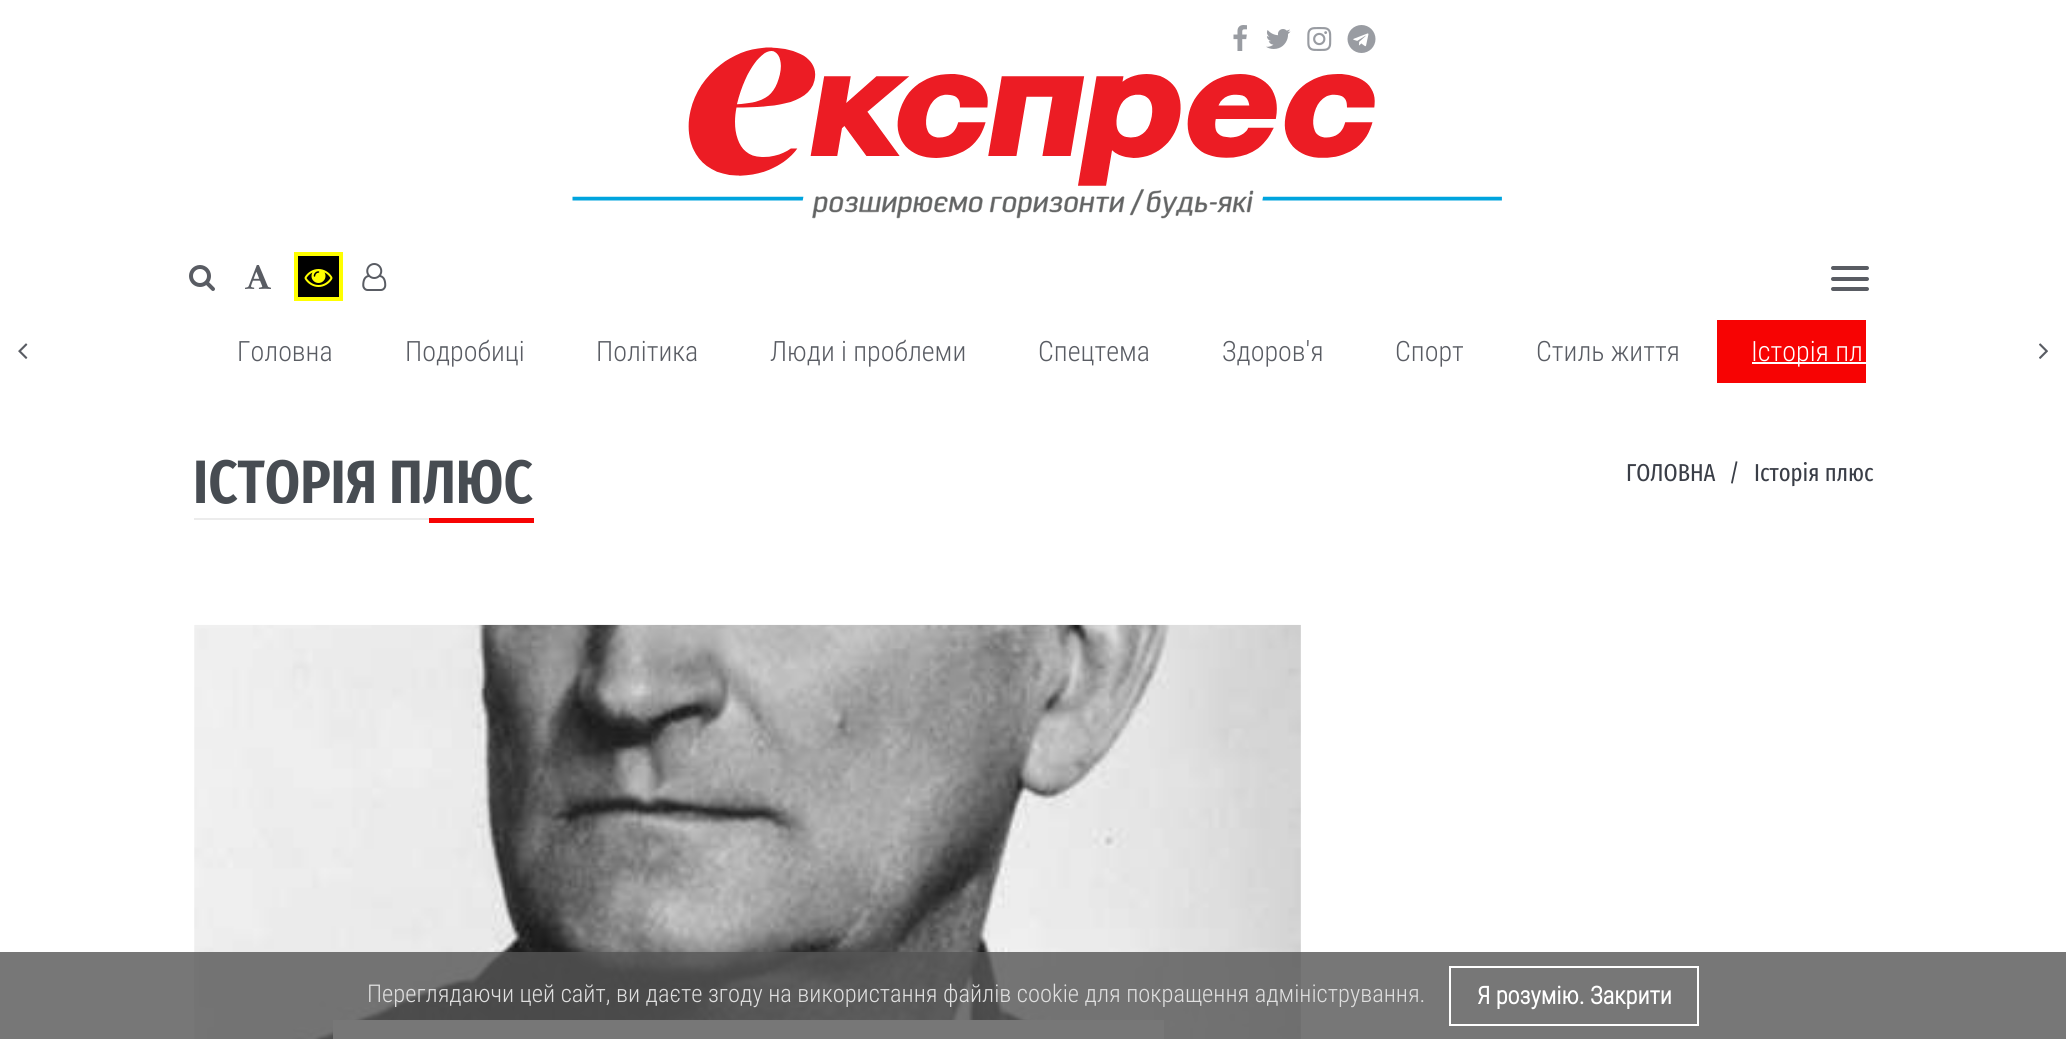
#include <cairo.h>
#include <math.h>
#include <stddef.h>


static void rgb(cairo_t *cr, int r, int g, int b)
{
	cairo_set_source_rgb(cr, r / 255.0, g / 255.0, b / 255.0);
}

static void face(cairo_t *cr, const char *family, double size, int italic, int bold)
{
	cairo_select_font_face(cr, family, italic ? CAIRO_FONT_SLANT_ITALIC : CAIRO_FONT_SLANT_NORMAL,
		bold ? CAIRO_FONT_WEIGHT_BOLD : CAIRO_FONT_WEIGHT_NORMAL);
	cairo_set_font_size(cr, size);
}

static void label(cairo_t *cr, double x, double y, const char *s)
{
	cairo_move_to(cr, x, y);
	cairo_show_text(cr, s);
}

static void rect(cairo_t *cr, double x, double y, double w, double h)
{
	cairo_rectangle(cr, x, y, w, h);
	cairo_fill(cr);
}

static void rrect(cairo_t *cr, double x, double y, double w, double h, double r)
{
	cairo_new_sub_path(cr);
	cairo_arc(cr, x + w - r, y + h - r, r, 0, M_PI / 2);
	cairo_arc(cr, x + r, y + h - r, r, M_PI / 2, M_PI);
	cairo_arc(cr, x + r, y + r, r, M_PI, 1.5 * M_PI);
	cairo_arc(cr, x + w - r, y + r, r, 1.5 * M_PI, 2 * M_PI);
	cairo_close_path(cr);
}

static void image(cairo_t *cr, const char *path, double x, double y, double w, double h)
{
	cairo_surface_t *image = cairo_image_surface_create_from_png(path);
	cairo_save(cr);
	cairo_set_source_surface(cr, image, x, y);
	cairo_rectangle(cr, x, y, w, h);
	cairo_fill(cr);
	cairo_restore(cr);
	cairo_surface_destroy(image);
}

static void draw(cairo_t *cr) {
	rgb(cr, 255, 255, 255);
	cairo_paint(cr);
	image(cr, "image4.png", 572, 47, 930, 172);
	image(cr, "image0.png", 1233, 25, 14, 26);
	image(cr, "image1.png", 1266, 29, 25, 20);
	image(cr, "image2.png", 1307, 27, 25, 24);
	image(cr, "image3.png", 1347, 25, 29, 28);
	image(cr, "image5.png", 189, 265, 26, 26);
	image(cr, "image6.png", 245, 265, 26, 24);
	rgb(cr, 0, 0, 0);
	cairo_rectangle(cr, 296, 254, 45, 45);
	cairo_fill_preserve(cr);
	rgb(cr, 255, 255, 0);
	cairo_set_line_width(cr, 4);
	cairo_stroke(cr);
	image(cr, "image7.png", 304, 269, 29, 18);
	image(cr, "image8.png", 362, 263, 25, 28);
	rgb(cr, 89, 92, 99);
	rrect(cr, 1831, 266, 38, 4, 2);
	cairo_fill(cr);
	rrect(cr, 1831, 277, 38, 4, 2);
	cairo_fill(cr);
	rrect(cr, 1831, 287, 38, 4, 2);
	cairo_fill(cr);
	image(cr, "image9.png", 18, 343, 10, 16);
	face(cr, "Roboto Condensed Light", 28, 0, 0);
	label(cr, 237, 361, "Головна");
	label(cr, 405, 361, "Подробиці");
	label(cr, 596, 361, "Політика");
	label(cr, 770, 361, "Люди і проблеми");
	label(cr, 1038, 361, "Спецтема");
	label(cr, 1222, 361, "Здоров'я");
	label(cr, 1395, 361, "Cпорт");
	label(cr, 1536, 361, "Cтиль життя");
	cairo_save(cr);
	cairo_rectangle(cr, 203, 320, 1663, 63);
	cairo_clip(cr);
	rgb(cr, 247, 3, 3);
	cairo_new_path(cr);
	cairo_move_to(cr, 1717, 383);
	cairo_line_to(cr, 1717, 320);
	cairo_line_to(cr, 1930, 320);
	cairo_line_to(cr, 1930, 371);
	cairo_line_to(cr, 1918, 383);
	cairo_close_path(cr);
	cairo_fill(cr);
	cairo_restore(cr);
	rgb(cr, 255, 255, 255);
	rect(cr, 1752, 362, 114, 2);
	label(cr, 1751, 361, "Історія пл");
	image(cr, "image10.png", 2039, 343, 9, 16);
	face(cr, "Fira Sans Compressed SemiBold", 61.25, 0, 0);
	rgb(cr, 71, 76, 82);
	label(cr, 193, 503, "ІСТОРІЯ ПЛЮС");
	rgb(cr, 236, 236, 236);
	rect(cr, 194, 518, 235, 2);
	rgb(cr, 247, 3, 3);
	rect(cr, 429, 518, 105, 5);
	face(cr, "Fira Sans Compressed", 24.5, 0, 0);
	rgb(cr, 58, 62, 71);
	label(cr, 1626, 481, "ГОЛОВНА");
	label(cr, 1729, 481, "/");
	label(cr, 1754, 481, "Історія плюс");
	image(cr, "image11.png", 194, 624, 1107, 415);
	rgb(cr, 255, 255, 255);
	rect(cr, 333, 1020, 831, 19);
	cairo_set_source_rgba(cr, 0.333, 0.333, 0.333, 0.8);
	rect(cr, 0, 952, 2066, 87);
	face(cr, "Roboto Condensed Light", 24.5, 0, 0);
	rgb(cr, 223, 223, 223);
	label(cr, 367, 1002, "Переглядаючи цей сайт, ви даєте згоду на використання файлів cookie для покращення адміністрування.");
	cairo_rectangle(cr, 1450, 967, 248, 58);
	rgb(cr, 255, 255, 255);
	cairo_set_line_width(cr, 2);
	cairo_stroke(cr);
	face(cr, "Roboto Condensed", 24.5, 0, 1);
	label(cr, 1477, 1004, "Я розумію. Закрити");
}

int main(void) {
	cairo_surface_t *surface = cairo_image_surface_create(CAIRO_FORMAT_RGB24, 2066, 1039);
	cairo_t *cr = cairo_create(surface);
	cairo_font_options_t *options = cairo_font_options_create();
	cairo_font_options_set_hint_metrics(options, CAIRO_HINT_METRICS_OFF);
	cairo_font_options_set_hint_style(options, CAIRO_HINT_STYLE_NONE);
	cairo_set_font_options(cr, options);
	cairo_set_miter_limit(cr, 4);
	draw(cr);
	cairo_surface_write_to_png(surface, "render.png");
	cairo_font_options_destroy(options);
	cairo_destroy(cr);
	cairo_surface_destroy(surface);
	return 0;
}
